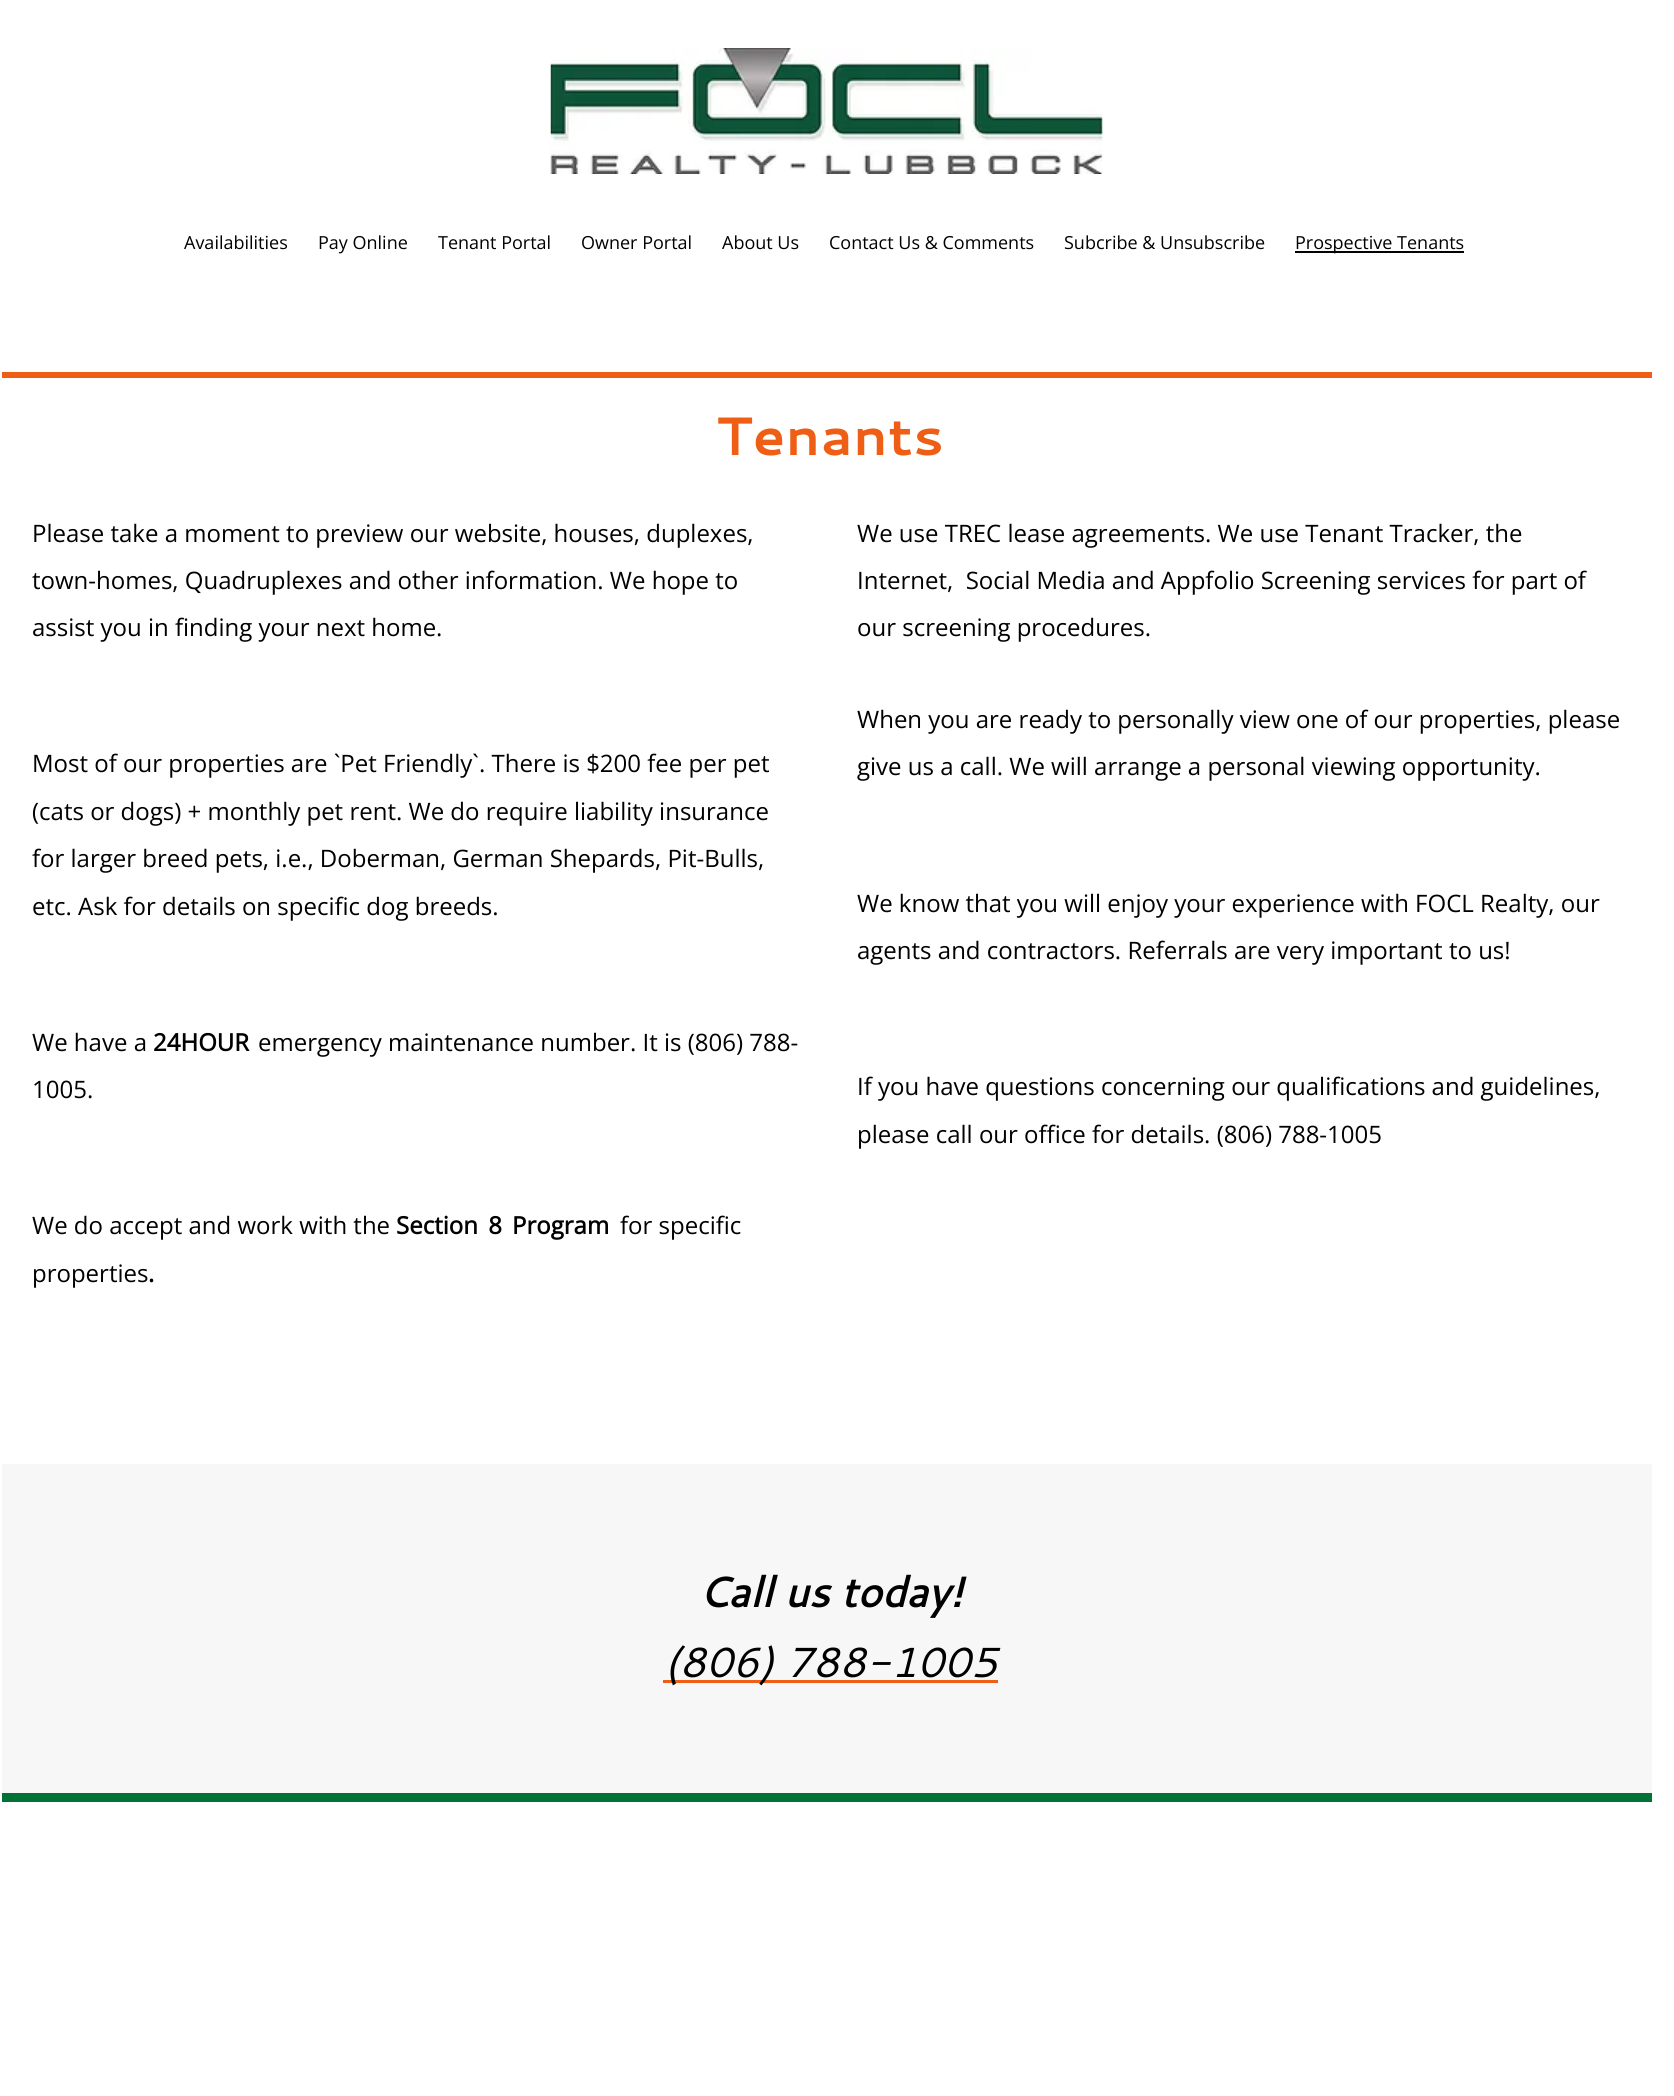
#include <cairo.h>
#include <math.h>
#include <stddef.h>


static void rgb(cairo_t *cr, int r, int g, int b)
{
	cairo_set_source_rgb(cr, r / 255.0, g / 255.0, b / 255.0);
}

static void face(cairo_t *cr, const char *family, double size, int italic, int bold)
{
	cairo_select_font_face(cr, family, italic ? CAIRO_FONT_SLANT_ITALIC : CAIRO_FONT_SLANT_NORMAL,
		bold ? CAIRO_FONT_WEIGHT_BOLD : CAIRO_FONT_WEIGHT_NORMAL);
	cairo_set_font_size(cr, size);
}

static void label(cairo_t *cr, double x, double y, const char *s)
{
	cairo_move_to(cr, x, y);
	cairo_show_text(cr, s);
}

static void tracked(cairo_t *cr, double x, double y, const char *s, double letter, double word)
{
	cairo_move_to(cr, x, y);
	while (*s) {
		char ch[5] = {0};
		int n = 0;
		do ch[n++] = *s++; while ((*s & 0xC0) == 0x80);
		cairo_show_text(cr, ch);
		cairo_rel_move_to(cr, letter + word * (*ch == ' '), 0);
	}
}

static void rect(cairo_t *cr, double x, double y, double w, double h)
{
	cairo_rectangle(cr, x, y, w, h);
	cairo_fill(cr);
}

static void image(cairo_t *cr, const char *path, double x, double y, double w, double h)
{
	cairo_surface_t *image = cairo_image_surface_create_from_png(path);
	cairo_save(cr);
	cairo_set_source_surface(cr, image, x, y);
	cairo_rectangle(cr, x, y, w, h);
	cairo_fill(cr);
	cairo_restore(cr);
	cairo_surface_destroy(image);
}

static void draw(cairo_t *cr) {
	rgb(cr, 255, 255, 255);
	cairo_paint(cr);
	image(cr, "image0.png", 550, 48, 553, 126);
	face(cr, "Open Sans", 18, 0, 0);
	rgb(cr, 0, 0, 0);
	label(cr, 184, 249, "Availabilities");
	label(cr, 318, 249, "Pay Online");
	label(cr, 438, 249, "Tenant Portal");
	label(cr, 581, 249, "Owner Portal");
	label(cr, 722, 249, "About Us");
	label(cr, 829, 249, "Contact Us & Comments");
	label(cr, 1064, 249, "Subcribe & Unsubscribe");
	rect(cr, 1295, 251, 169, 2);
	label(cr, 1295, 249, "Prospective Tenants");
	rgb(cr, 238, 94, 21);
	rect(cr, 2, 372, 1650, 6);
	face(cr, "Cantarell", 54, 0, 1);
	label(cr, 716, 455, "Tenants");
	face(cr, "Open Sans", 24, 0, 0);
	rgb(cr, 0, 0, 0);
	label(cr, 32, 542, "Please take a moment to preview our website, houses, duplexes,");
	label(cr, 32, 589, "town-homes, Quadruplexes and other information. We hope to");
	label(cr, 32, 636, "assist you in finding your next home.");
	label(cr, 32, 772, "Most of our properties are `Pet Friendly`. There is $200 fee per pet");
	label(cr, 32, 820, "(cats or dogs) + monthly pet rent. We do require liability insurance");
	label(cr, 32, 867, "for larger breed pets, i.e., Doberman, German Shepards, Pit-Bulls,");
	label(cr, 32, 915, "etc. Ask for details on specific dog breeds.");
	label(cr, 32, 1051, "We have a");
	face(cr, "Open Sans", 24, 0, 1);
	label(cr, 153, 1051, "24HOUR");
	face(cr, "Open Sans", 24, 0, 0);
	label(cr, 258, 1051, "emergency maintenance number. It is (806) 788-");
	label(cr, 32, 1098, "1005.");
	label(cr, 32, 1234, "We do accept and work with the");
	face(cr, "Open Sans", 24, 0, 1);
	tracked(cr, 396, 1234, "Section 8 Program", 0, 4);
	face(cr, "Open Sans", 24, 0, 0);
	label(cr, 620, 1234, "for specific");
	label(cr, 32, 1282, "properties");
	face(cr, "Open Sans", 24, 0, 1);
	label(cr, 148, 1282, ".");
	face(cr, "Open Sans", 24, 0, 0);
	label(cr, 857, 542, "We use TREC lease agreements. We use Tenant Tracker, the");
	label(cr, 857, 589, "Internet,  Social Media and Appfolio Screening services for part of");
	label(cr, 857, 636, "our screening procedures.");
	label(cr, 857, 728, "When you are ready to personally view one of our properties, please");
	label(cr, 857, 775, "give us a call. We will arrange a personal viewing opportunity.");
	label(cr, 857, 912, "We know that you will enjoy your experience with FOCL Realty, our");
	label(cr, 857, 959, "agents and contractors. Referrals are very important to us!");
	label(cr, 857, 1095, "If you have questions concerning our qualifications and guidelines,");
	label(cr, 857, 1143, "please call our office for details. (806) 788-1005");
	rgb(cr, 247, 247, 247);
	rect(cr, 2, 1464, 1650, 329);
	face(cr, "Cantarell", 42, 1, 1);
	rgb(cr, 0, 0, 0);
	label(cr, 698, 1607, "Call us today!");
	rgb(cr, 238, 94, 21);
	rect(cr, 663, 1680, 335, 3);
	face(cr, "Cantarell", 42, 1, 0);
	rgb(cr, 0, 0, 0);
	label(cr, 664, 1677, "(806) 788-1005");
	rgb(cr, 0, 114, 54);
	rect(cr, 2, 1793, 1650, 9);
}

int main(void) {
	cairo_surface_t *surface = cairo_image_surface_create(CAIRO_FORMAT_RGB24, 1674, 2096);
	cairo_t *cr = cairo_create(surface);
	cairo_font_options_t *options = cairo_font_options_create();
	cairo_font_options_set_hint_metrics(options, CAIRO_HINT_METRICS_OFF);
	cairo_font_options_set_hint_style(options, CAIRO_HINT_STYLE_NONE);
	cairo_set_font_options(cr, options);
	cairo_set_miter_limit(cr, 4);
	draw(cr);
	cairo_surface_write_to_png(surface, "render.png");
	cairo_font_options_destroy(options);
	cairo_destroy(cr);
	cairo_surface_destroy(surface);
	return 0;
}
